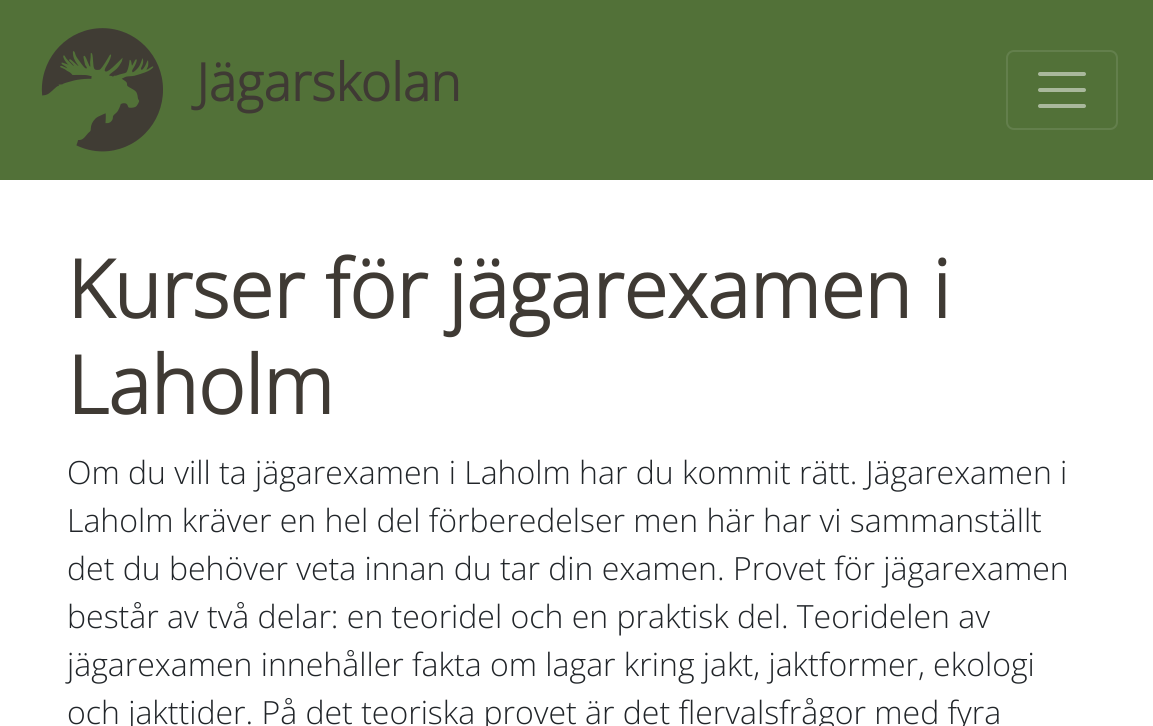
#include <cairo.h>
#include <math.h>
#include <stddef.h>


static void rgb(cairo_t *cr, int r, int g, int b)
{
	cairo_set_source_rgb(cr, r / 255.0, g / 255.0, b / 255.0);
}

static void face(cairo_t *cr, const char *family, double size, int italic, int bold)
{
	cairo_select_font_face(cr, family, italic ? CAIRO_FONT_SLANT_ITALIC : CAIRO_FONT_SLANT_NORMAL,
		bold ? CAIRO_FONT_WEIGHT_BOLD : CAIRO_FONT_WEIGHT_NORMAL);
	cairo_set_font_size(cr, size);
}

static void label(cairo_t *cr, double x, double y, const char *s)
{
	cairo_move_to(cr, x, y);
	cairo_show_text(cr, s);
}

static void rect(cairo_t *cr, double x, double y, double w, double h)
{
	cairo_rectangle(cr, x, y, w, h);
	cairo_fill(cr);
}

static void rrect(cairo_t *cr, double x, double y, double w, double h, double r)
{
	cairo_new_sub_path(cr);
	cairo_arc(cr, x + w - r, y + h - r, r, 0, M_PI / 2);
	cairo_arc(cr, x + r, y + h - r, r, M_PI / 2, M_PI);
	cairo_arc(cr, x + r, y + r, r, M_PI, 1.5 * M_PI);
	cairo_arc(cr, x + w - r, y + r, r, 1.5 * M_PI, 2 * M_PI);
	cairo_close_path(cr);
}

static void image(cairo_t *cr, const char *path, double x, double y, double w, double h)
{
	cairo_surface_t *image = cairo_image_surface_create_from_png(path);
	cairo_save(cr);
	cairo_set_source_surface(cr, image, x, y);
	cairo_rectangle(cr, x, y, w, h);
	cairo_fill(cr);
	cairo_restore(cr);
	cairo_surface_destroy(image);
}

static void draw(cairo_t *cr) {
	rgb(cr, 255, 255, 255);
	cairo_paint(cr);
	rgb(cr, 82, 113, 56);
	rect(cr, 0, 0, 1153, 180);
	image(cr, "image0.png", 41, 28, 122, 124);
	face(cr, "Open Sans", 52, 0, 1);
	rgb(cr, 63, 58, 52);
	label(cr, 196, 101, "Jägarskolan");
	rrect(cr, 1007, 51, 110, 78, 7);
	rgb(cr, 99, 127, 76);
	cairo_stroke(cr);
	cairo_new_path(cr);
	cairo_move_to(cr, 1040, 74);
	cairo_line_to(cr, 1084, 74);
	cairo_move_to(cr, 1040, 90);
	cairo_line_to(cr, 1084, 90);
	cairo_move_to(cr, 1040, 106);
	cairo_line_to(cr, 1084, 106);
	rgb(cr, 169, 184, 156);
	cairo_set_line_width(cr, 4);
	cairo_set_line_cap(cr, CAIRO_LINE_CAP_ROUND);
	cairo_stroke(cr);
	face(cr, "Open Sans", 80, 0, 1);
	rgb(cr, 63, 58, 52);
	label(cr, 67, 318, "Kurser för jägarexamen i");
	label(cr, 67, 414, "Laholm");
	face(cr, "Open Sans Light", 32, 0, 0);
	rgb(cr, 33, 37, 41);
	label(cr, 67, 484, "Om du vill ta jägarexamen i Laholm har du kommit rätt. Jägarexamen i");
	label(cr, 67, 532, "Laholm kräver en hel del förberedelser men här har vi sammanställt");
	label(cr, 67, 580, "det du behöver veta innan du tar din examen. Provet för jägarexamen");
	label(cr, 67, 628, "består av två delar: en teoridel och en praktisk del. Teoridelen av");
	label(cr, 67, 676, "jägarexamen innehåller fakta om lagar kring jakt, jaktformer, ekologi");
	label(cr, 67, 724, "och jakttider. På det teoriska provet är det flervalsfrågor med fyra");
}

int main(void) {
	cairo_surface_t *surface = cairo_image_surface_create(CAIRO_FORMAT_RGB24, 1153, 726);
	cairo_t *cr = cairo_create(surface);
	cairo_font_options_t *options = cairo_font_options_create();
	cairo_font_options_set_hint_metrics(options, CAIRO_HINT_METRICS_OFF);
	cairo_font_options_set_hint_style(options, CAIRO_HINT_STYLE_NONE);
	cairo_set_font_options(cr, options);
	cairo_set_miter_limit(cr, 4);
	draw(cr);
	cairo_surface_write_to_png(surface, "render.png");
	cairo_font_options_destroy(options);
	cairo_destroy(cr);
	cairo_surface_destroy(surface);
	return 0;
}
